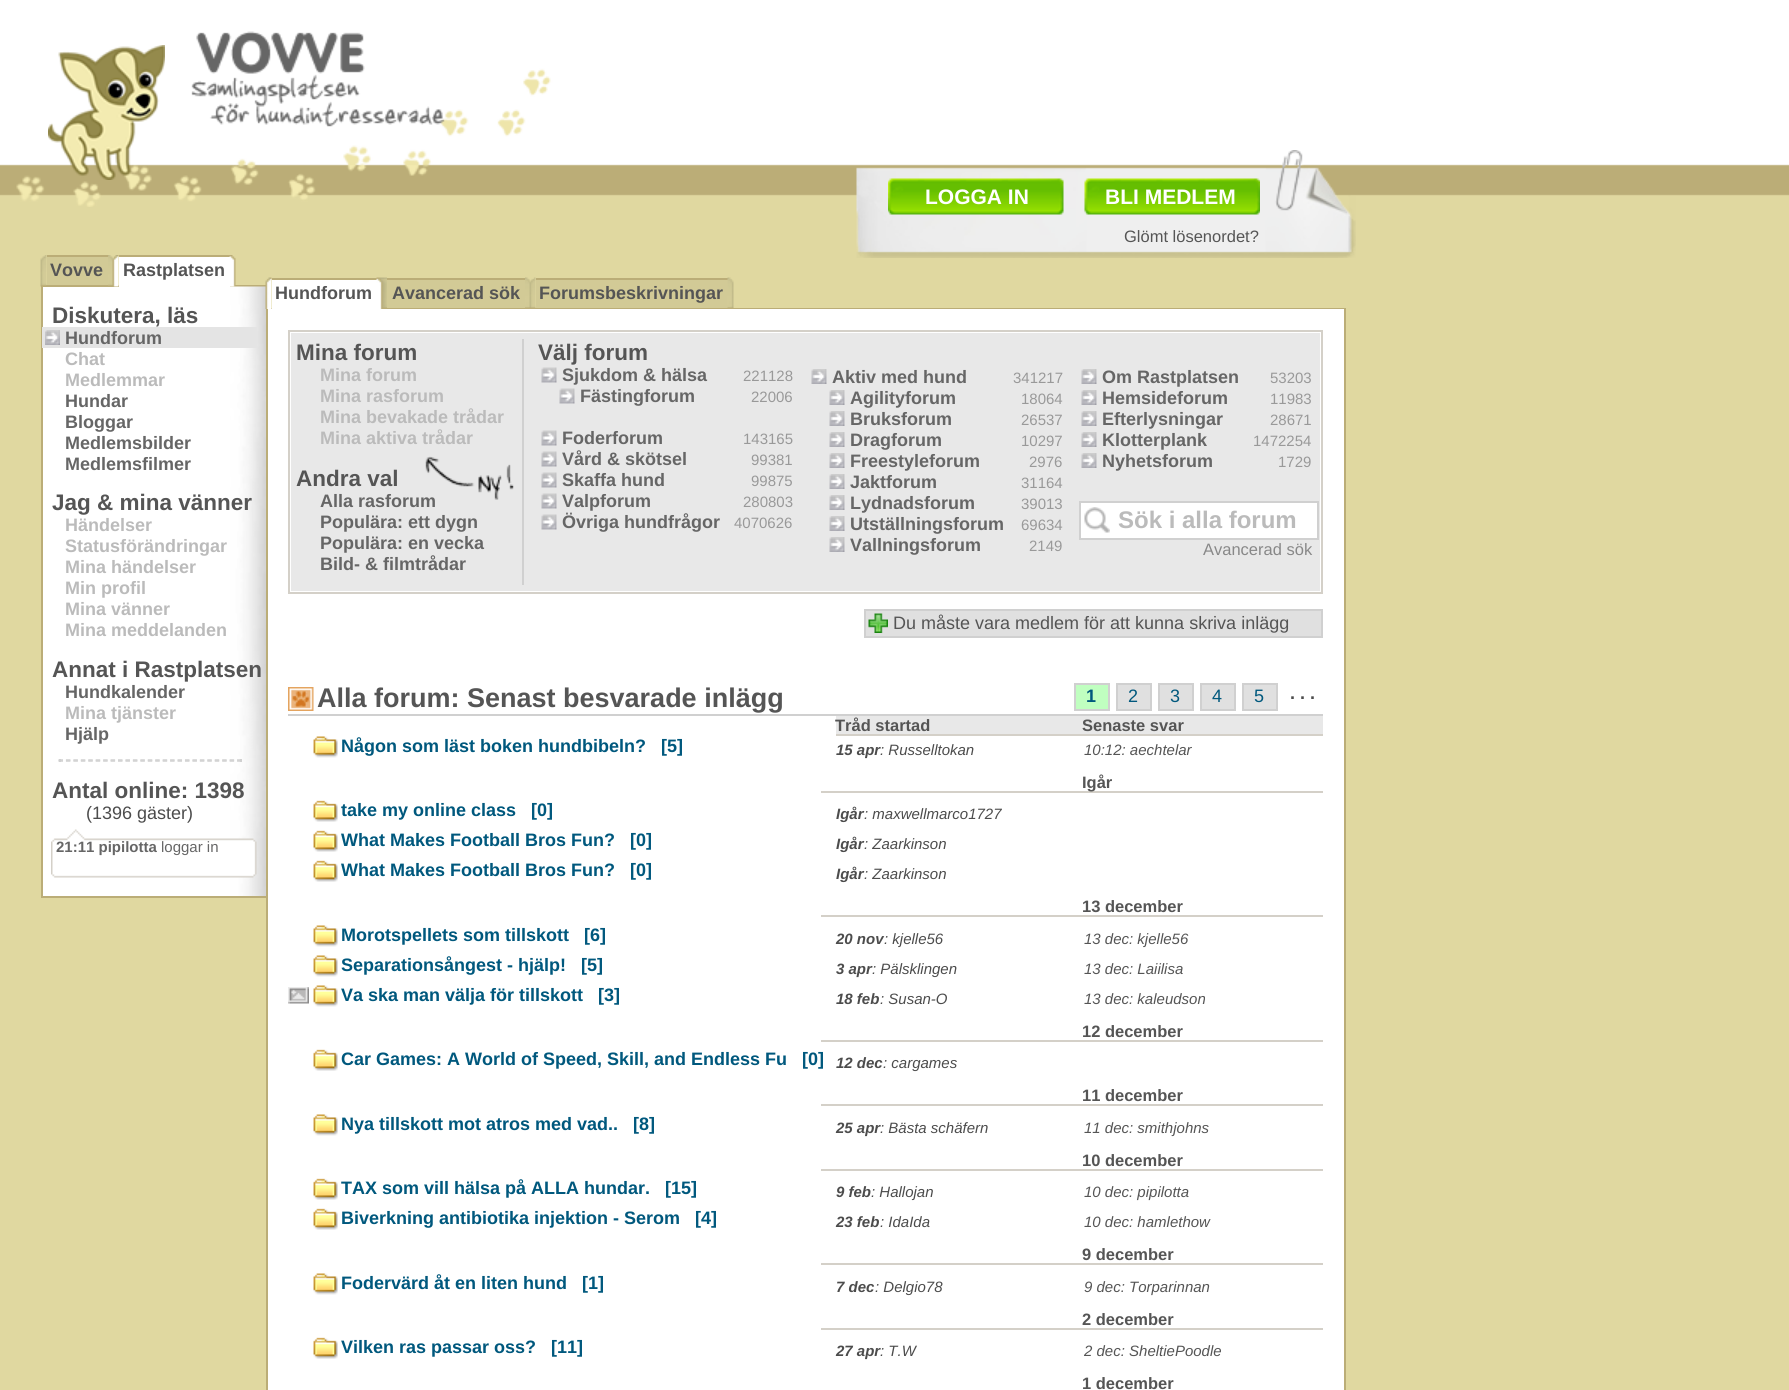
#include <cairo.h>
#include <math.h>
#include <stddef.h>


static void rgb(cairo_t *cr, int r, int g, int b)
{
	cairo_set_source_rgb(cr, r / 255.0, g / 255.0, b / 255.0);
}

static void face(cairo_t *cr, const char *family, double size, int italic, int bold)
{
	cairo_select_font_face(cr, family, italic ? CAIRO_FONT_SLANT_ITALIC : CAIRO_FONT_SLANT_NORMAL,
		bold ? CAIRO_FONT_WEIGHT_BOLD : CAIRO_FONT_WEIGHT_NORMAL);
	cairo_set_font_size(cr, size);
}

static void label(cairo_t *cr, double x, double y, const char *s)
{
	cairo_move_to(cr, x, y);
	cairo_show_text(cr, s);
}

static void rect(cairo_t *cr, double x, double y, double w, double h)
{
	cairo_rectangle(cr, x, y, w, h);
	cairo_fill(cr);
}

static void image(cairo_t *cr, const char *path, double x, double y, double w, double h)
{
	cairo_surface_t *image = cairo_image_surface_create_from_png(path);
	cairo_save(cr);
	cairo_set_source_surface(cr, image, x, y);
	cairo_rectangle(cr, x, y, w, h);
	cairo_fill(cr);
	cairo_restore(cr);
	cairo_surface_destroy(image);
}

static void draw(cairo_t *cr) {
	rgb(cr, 224, 216, 160);
	cairo_paint(cr);
	image(cr, "image0.png", 0, 0, 1789, 207);
	image(cr, "image1.png", 48, 45, 117, 135);
	image(cr, "image2.png", 191, 31, 254, 96);
	image(cr, "image3.png", 856, 150, 500, 108);
	image(cr, "image4.png", 888, 178, 176, 37);
	face(cr, "Liberation Sans", 21, 0, 1);
	rgb(cr, 255, 255, 255);
	label(cr, 925, 204, "LOGGA IN");
	image(cr, "image5.png", 1084, 178, 176, 37);
	label(cr, 1105, 204, "BLI MEDLEM");
	face(cr, "Liberation Sans", 16.5, 0, 0);
	rgb(cr, 85, 85, 85);
	label(cr, 1124, 242, "Glömt lösenordet?");
	rgb(cr, 187, 173, 119);
	rect(cr, 41, 285, 225, 2);
	image(cr, "image6.png", 40, 255, 7, 32);
	rgb(cr, 210, 202, 150);
	rect(cr, 47, 257, 61, 28);
	rgb(cr, 187, 173, 119);
	rect(cr, 47, 255, 61, 2);
	face(cr, "Liberation Sans", 18, 0, 1);
	rgb(cr, 85, 85, 85);
	label(cr, 50, 276, "Vovve");
	image(cr, "image7.png", 108, 255, 11, 32);
	rgb(cr, 255, 255, 255);
	rect(cr, 119, 257, 111, 30);
	rgb(cr, 187, 173, 119);
	rect(cr, 119, 255, 111, 2);
	rgb(cr, 85, 85, 85);
	label(cr, 123, 276, "Rastplatsen");
	image(cr, "image8.png", 229, 255, 7, 32);
	rgb(cr, 255, 255, 255);
	rect(cr, 43, 287, 187, 609);
	image(cr, "image9.png", 230, 286, 36, 610);
	rgb(cr, 187, 173, 119);
	rect(cr, 41, 896, 226, 2);
	rect(cr, 41, 287, 2, 610);
	face(cr, "Liberation Sans", 22.5, 0, 1);
	rgb(cr, 85, 85, 85);
	label(cr, 52, 323, "Diskutera, läs");
	rgb(cr, 228, 228, 228);
	rect(cr, 42, 327, 215, 21);
	image(cr, "image10.png", 45, 330, 15, 15);
	face(cr, "Liberation Sans", 18, 0, 1);
	rgb(cr, 102, 102, 102);
	label(cr, 65, 344, "Hundforum");
	rgb(cr, 187, 187, 187);
	label(cr, 65, 365, "Chat");
	label(cr, 65, 386, "Medlemmar");
	rgb(cr, 102, 102, 102);
	label(cr, 65, 407, "Hundar");
	label(cr, 65, 428, "Bloggar");
	label(cr, 65, 449, "Medlemsbilder");
	label(cr, 65, 470, "Medlemsfilmer");
	face(cr, "Liberation Sans", 22.5, 0, 1);
	rgb(cr, 85, 85, 85);
	label(cr, 52, 510, "Jag & mina vänner");
	face(cr, "Liberation Sans", 18, 0, 1);
	rgb(cr, 187, 187, 187);
	label(cr, 65, 531, "Händelser");
	label(cr, 65, 552, "Statusförändringar");
	label(cr, 65, 573, "Mina händelser");
	label(cr, 65, 594, "Min profil");
	label(cr, 65, 615, "Mina vänner");
	label(cr, 65, 636, "Mina meddelanden");
	face(cr, "Liberation Sans", 22.5, 0, 1);
	rgb(cr, 85, 85, 85);
	label(cr, 52, 677, "Annat i Rastplatsen");
	face(cr, "Liberation Sans", 18, 0, 1);
	rgb(cr, 102, 102, 102);
	label(cr, 65, 698, "Hundkalender");
	rgb(cr, 187, 187, 187);
	label(cr, 65, 719, "Mina tjänster");
	rgb(cr, 102, 102, 102);
	label(cr, 65, 740, "Hjälp");
	cairo_new_path(cr);
	cairo_move_to(cr, 58.5, 760);
	cairo_line_to(cr, 241.5, 760);
	rgb(cr, 208, 208, 208);
	cairo_set_line_width(cr, 1.5);
	cairo_set_dash(cr, (double[]){4.5, 2.94}, 2, 0);
	cairo_stroke(cr);
	rect(cr, 240, 759, 2, 3);
	cairo_new_path(cr);
	cairo_move_to(cr, 58.5, 761);
	cairo_line_to(cr, 241.5, 761);
	cairo_stroke(cr);
	rect(cr, 59, 759, 2, 3);
	face(cr, "Liberation Sans", 22.5, 0, 1);
	rgb(cr, 85, 85, 85);
	label(cr, 52, 798, "Antal online: 1398");
	face(cr, "Liberation Sans", 18, 0, 0);
	rgb(cr, 76, 76, 76);
	label(cr, 86, 819, "(1396 gäster)");
	image(cr, "image11.png", 51, 829, 206, 49);
	face(cr, "Liberation Sans", 15, 0, 1);
	rgb(cr, 102, 102, 102);
	label(cr, 56, 852, "21:11 pipilotta");
	face(cr, "Liberation Sans", 15, 0, 0);
	label(cr, 161, 852, "loggar in");
	rgb(cr, 187, 173, 119);
	rect(cr, 266, 308, 1080, 1);
	image(cr, "image12.png", 265, 277, 7, 32);
	rgb(cr, 255, 255, 255);
	rect(cr, 272, 280, 105, 29);
	rgb(cr, 187, 173, 119);
	rect(cr, 272, 278, 105, 2);
	face(cr, "Liberation Sans", 18, 0, 1);
	rgb(cr, 85, 85, 85);
	label(cr, 275, 299, "Hundforum");
	image(cr, "image13.png", 376, 277, 11, 32);
	rgb(cr, 210, 202, 150);
	rect(cr, 387, 280, 138, 28);
	rgb(cr, 187, 173, 119);
	rect(cr, 387, 278, 138, 2);
	rgb(cr, 85, 85, 85);
	label(cr, 392, 299, "Avancerad sök");
	image(cr, "image14.png", 525, 277, 11, 31);
	rgb(cr, 210, 202, 150);
	rect(cr, 536, 280, 192, 28);
	rgb(cr, 187, 173, 119);
	rect(cr, 536, 278, 192, 2);
	rgb(cr, 85, 85, 85);
	label(cr, 539, 299, "Forumsbeskrivningar");
	image(cr, "image15.png", 727, 277, 7, 31);
	rgb(cr, 255, 255, 255);
	rect(cr, 268, 309, 1076, 1081);
	rgb(cr, 187, 173, 119);
	rect(cr, 1344, 309, 2, 1081);
	rect(cr, 266, 309, 2, 1081);
	cairo_rectangle(cr, 289, 331, 1033, 262);
	rgb(cr, 212, 208, 200);
	cairo_set_line_width(cr, 2);
	cairo_set_dash(cr, NULL, 0, 0);
	cairo_stroke(cr);
	rgb(cr, 232, 232, 232);
	rect(cr, 291, 333, 1029, 258);
	image(cr, "image16.png", 425, 456, 89, 44);
	rgb(cr, 208, 208, 208);
	rect(cr, 522, 339, 2, 246);
	face(cr, "Liberation Sans", 22.5, 0, 1);
	rgb(cr, 85, 85, 85);
	label(cr, 296, 360, "Mina forum");
	face(cr, "Liberation Sans", 18, 0, 1);
	rgb(cr, 187, 187, 187);
	label(cr, 320, 381, "Mina forum");
	label(cr, 320, 402, "Mina rasforum");
	label(cr, 320, 423, "Mina bevakade trådar");
	label(cr, 320, 444, "Mina aktiva trådar");
	face(cr, "Liberation Sans", 22.5, 0, 1);
	rgb(cr, 85, 85, 85);
	label(cr, 296, 486, "Andra val");
	face(cr, "Liberation Sans", 18, 0, 1);
	rgb(cr, 102, 102, 102);
	label(cr, 320, 507, "Alla rasforum");
	label(cr, 320, 528, "Populära: ett dygn");
	label(cr, 320, 549, "Populära: en vecka");
	label(cr, 320, 570, "Bild- & filmtrådar");
	face(cr, "Liberation Sans", 22.5, 0, 1);
	rgb(cr, 85, 85, 85);
	label(cr, 538, 360, "Välj forum");
	image(cr, "image17.png", 541, 367, 16, 16);
	face(cr, "Liberation Sans", 18, 0, 1);
	rgb(cr, 102, 102, 102);
	label(cr, 562, 381, "Sjukdom & hälsa");
	face(cr, "Liberation Sans", 15, 0, 0);
	rgb(cr, 153, 153, 153);
	label(cr, 743, 381, "221128");
	image(cr, "image17.png", 559, 388, 16, 16);
	face(cr, "Liberation Sans", 18, 0, 1);
	rgb(cr, 102, 102, 102);
	label(cr, 580, 402, "Fästingforum");
	face(cr, "Liberation Sans", 15, 0, 0);
	rgb(cr, 153, 153, 153);
	label(cr, 751, 402, "22006");
	image(cr, "image17.png", 541, 430, 16, 16);
	face(cr, "Liberation Sans", 18, 0, 1);
	rgb(cr, 102, 102, 102);
	label(cr, 562, 444, "Foderforum");
	face(cr, "Liberation Sans", 15, 0, 0);
	rgb(cr, 153, 153, 153);
	label(cr, 743, 444, "143165");
	image(cr, "image17.png", 541, 451, 16, 16);
	face(cr, "Liberation Sans", 18, 0, 1);
	rgb(cr, 102, 102, 102);
	label(cr, 562, 465, "Vård & skötsel");
	face(cr, "Liberation Sans", 15, 0, 0);
	rgb(cr, 153, 153, 153);
	label(cr, 751, 465, "99381");
	image(cr, "image17.png", 541, 472, 16, 16);
	face(cr, "Liberation Sans", 18, 0, 1);
	rgb(cr, 102, 102, 102);
	label(cr, 562, 486, "Skaffa hund");
	face(cr, "Liberation Sans", 15, 0, 0);
	rgb(cr, 153, 153, 153);
	label(cr, 751, 486, "99875");
	image(cr, "image17.png", 541, 493, 16, 16);
	face(cr, "Liberation Sans", 18, 0, 1);
	rgb(cr, 102, 102, 102);
	label(cr, 562, 507, "Valpforum");
	face(cr, "Liberation Sans", 15, 0, 0);
	rgb(cr, 153, 153, 153);
	label(cr, 743, 507, "280803");
	image(cr, "image17.png", 541, 514, 16, 16);
	face(cr, "Liberation Sans", 18, 0, 1);
	rgb(cr, 102, 102, 102);
	label(cr, 562, 528, "Övriga hundfrågor");
	face(cr, "Liberation Sans", 15, 0, 0);
	rgb(cr, 153, 153, 153);
	label(cr, 734, 528, "4070626");
	image(cr, "image18.png", 811, 369, 16, 15);
	face(cr, "Liberation Sans", 18, 0, 1);
	rgb(cr, 102, 102, 102);
	label(cr, 832, 383, "Aktiv med hund");
	face(cr, "Liberation Sans", 15, 0, 0);
	rgb(cr, 153, 153, 153);
	label(cr, 1013, 383, "341217");
	image(cr, "image18.png", 829, 390, 16, 15);
	face(cr, "Liberation Sans", 18, 0, 1);
	rgb(cr, 102, 102, 102);
	label(cr, 850, 404, "Agilityforum");
	face(cr, "Liberation Sans", 15, 0, 0);
	rgb(cr, 153, 153, 153);
	label(cr, 1021, 404, "18064");
	image(cr, "image18.png", 829, 411, 16, 15);
	face(cr, "Liberation Sans", 18, 0, 1);
	rgb(cr, 102, 102, 102);
	label(cr, 850, 425, "Bruksforum");
	face(cr, "Liberation Sans", 15, 0, 0);
	rgb(cr, 153, 153, 153);
	label(cr, 1021, 425, "26537");
	image(cr, "image18.png", 829, 432, 16, 15);
	face(cr, "Liberation Sans", 18, 0, 1);
	rgb(cr, 102, 102, 102);
	label(cr, 850, 446, "Dragforum");
	face(cr, "Liberation Sans", 15, 0, 0);
	rgb(cr, 153, 153, 153);
	label(cr, 1021, 446, "10297");
	image(cr, "image18.png", 829, 453, 16, 15);
	face(cr, "Liberation Sans", 18, 0, 1);
	rgb(cr, 102, 102, 102);
	label(cr, 850, 467, "Freestyleforum");
	face(cr, "Liberation Sans", 15, 0, 0);
	rgb(cr, 153, 153, 153);
	label(cr, 1029, 467, "2976");
	image(cr, "image18.png", 829, 474, 16, 15);
	face(cr, "Liberation Sans", 18, 0, 1);
	rgb(cr, 102, 102, 102);
	label(cr, 850, 488, "Jaktforum");
	face(cr, "Liberation Sans", 15, 0, 0);
	rgb(cr, 153, 153, 153);
	label(cr, 1021, 488, "31164");
	image(cr, "image18.png", 829, 495, 16, 15);
	face(cr, "Liberation Sans", 18, 0, 1);
	rgb(cr, 102, 102, 102);
	label(cr, 850, 509, "Lydnadsforum");
	face(cr, "Liberation Sans", 15, 0, 0);
	rgb(cr, 153, 153, 153);
	label(cr, 1021, 509, "39013");
	image(cr, "image18.png", 829, 516, 16, 15);
	face(cr, "Liberation Sans", 18, 0, 1);
	rgb(cr, 102, 102, 102);
	label(cr, 850, 530, "Utställningsforum");
	face(cr, "Liberation Sans", 15, 0, 0);
	rgb(cr, 153, 153, 153);
	label(cr, 1021, 530, "69634");
	image(cr, "image18.png", 829, 537, 16, 15);
	face(cr, "Liberation Sans", 18, 0, 1);
	rgb(cr, 102, 102, 102);
	label(cr, 850, 551, "Vallningsforum");
	face(cr, "Liberation Sans", 15, 0, 0);
	rgb(cr, 153, 153, 153);
	label(cr, 1029, 551, "2149");
	image(cr, "image18.png", 1081, 369, 16, 15);
	face(cr, "Liberation Sans", 18, 0, 1);
	rgb(cr, 102, 102, 102);
	label(cr, 1102, 383, "Om Rastplatsen");
	face(cr, "Liberation Sans", 15, 0, 0);
	rgb(cr, 153, 153, 153);
	label(cr, 1270, 383, "53203");
	image(cr, "image18.png", 1081, 390, 16, 15);
	face(cr, "Liberation Sans", 18, 0, 1);
	rgb(cr, 102, 102, 102);
	label(cr, 1102, 404, "Hemsideforum");
	face(cr, "Liberation Sans", 15, 0, 0);
	rgb(cr, 153, 153, 153);
	label(cr, 1270, 404, "11983");
	image(cr, "image18.png", 1081, 411, 16, 15);
	face(cr, "Liberation Sans", 18, 0, 1);
	rgb(cr, 102, 102, 102);
	label(cr, 1102, 425, "Efterlysningar");
	face(cr, "Liberation Sans", 15, 0, 0);
	rgb(cr, 153, 153, 153);
	label(cr, 1270, 425, "28671");
	image(cr, "image18.png", 1081, 432, 16, 15);
	face(cr, "Liberation Sans", 18, 0, 1);
	rgb(cr, 102, 102, 102);
	label(cr, 1102, 446, "Klotterplank");
	face(cr, "Liberation Sans", 15, 0, 0);
	rgb(cr, 153, 153, 153);
	label(cr, 1253, 446, "1472254");
	image(cr, "image18.png", 1081, 453, 16, 15);
	face(cr, "Liberation Sans", 18, 0, 1);
	rgb(cr, 102, 102, 102);
	label(cr, 1102, 467, "Nyhetsforum");
	face(cr, "Liberation Sans", 15, 0, 0);
	rgb(cr, 153, 153, 153);
	label(cr, 1278, 467, "1729");
	rgb(cr, 255, 255, 255);
	rect(cr, 1081, 503, 236, 35);
	image(cr, "image19.png", 1084, 507, 26, 26);
	cairo_rectangle(cr, 1080, 502, 238, 37);
	rgb(cr, 208, 208, 208);
	cairo_stroke(cr);
	face(cr, "Liberation Sans", 24, 0, 1);
	rgb(cr, 187, 187, 187);
	label(cr, 1118, 528, "Sök i alla forum");
	face(cr, "Liberation Sans", 16.5, 0, 0);
	rgb(cr, 136, 136, 136);
	label(cr, 1203, 555, "Avancerad sök");
	rgb(cr, 224, 224, 224);
	rect(cr, 866, 611, 455, 25);
	image(cr, "image20.png", 868, 613, 20, 20);
	cairo_rectangle(cr, 865, 610, 457, 27);
	rgb(cr, 208, 208, 208);
	cairo_stroke(cr);
	face(cr, "Liberation Sans", 18, 0, 0);
	rgb(cr, 85, 85, 85);
	label(cr, 893, 629, "Du måste vara medlem för att kunna skriva inlägg");
	image(cr, "image21.png", 288, 687, 26, 24);
	rgb(cr, 208, 208, 208);
	rect(cr, 288, 714, 1035, 2);
	face(cr, "Liberation Sans", 27, 0, 1);
	rgb(cr, 85, 85, 85);
	label(cr, 317, 707, "Alla forum: Senast besvarade inlägg");
	rgb(cr, 192, 255, 192);
	cairo_rectangle(cr, 1075, 684, 34, 26);
	cairo_fill_preserve(cr);
	rgb(cr, 208, 208, 208);
	cairo_stroke(cr);
	face(cr, "Liberation Sans", 18, 0, 1);
	rgb(cr, 0, 88, 125);
	label(cr, 1086, 702, "1");
	rgb(cr, 224, 224, 224);
	cairo_rectangle(cr, 1117, 684, 34, 26);
	cairo_fill_preserve(cr);
	rgb(cr, 208, 208, 208);
	cairo_stroke(cr);
	face(cr, "Liberation Sans", 18, 0, 0);
	rgb(cr, 0, 88, 125);
	label(cr, 1128, 702, "2");
	rgb(cr, 224, 224, 224);
	cairo_rectangle(cr, 1159, 684, 34, 26);
	cairo_fill_preserve(cr);
	rgb(cr, 208, 208, 208);
	cairo_stroke(cr);
	rgb(cr, 0, 88, 125);
	label(cr, 1170, 702, "3");
	rgb(cr, 224, 224, 224);
	cairo_rectangle(cr, 1201, 684, 34, 26);
	cairo_fill_preserve(cr);
	rgb(cr, 208, 208, 208);
	cairo_stroke(cr);
	rgb(cr, 0, 88, 125);
	label(cr, 1212, 702, "4");
	rgb(cr, 224, 224, 224);
	cairo_rectangle(cr, 1243, 684, 34, 26);
	cairo_fill_preserve(cr);
	rgb(cr, 208, 208, 208);
	cairo_stroke(cr);
	rgb(cr, 0, 88, 125);
	label(cr, 1254, 702, "5");
	face(cr, "Liberation Sans", 18, 0, 1);
	rgb(cr, 76, 76, 76);
	label(cr, 1290, 699, ". . .");
	rgb(cr, 232, 232, 232);
	rect(cr, 836, 716, 487, 18);
	rgb(cr, 212, 208, 200);
	rect(cr, 836, 734, 487, 2);
	face(cr, "Liberation Sans", 16.5, 0, 1);
	rgb(cr, 85, 85, 85);
	label(cr, 835, 731, "Tråd startad");
	label(cr, 1082, 731, "Senaste svar");
	image(cr, "image22.png", 313, 736, 25, 22);
	face(cr, "Liberation Sans", 18, 0, 1);
	rgb(cr, 0, 88, 125);
	label(cr, 341, 752, "Någon som läst boken hundbibeln?");
	label(cr, 661, 752, "[5]");
	face(cr, "Liberation Sans", 15, 1, 1);
	rgb(cr, 76, 76, 76);
	label(cr, 836, 755, "15 apr");
	face(cr, "Liberation Sans", 15, 1, 0);
	label(cr, 880, 755, ": Russelltokan");
	rgb(cr, 85, 85, 85);
	label(cr, 1084, 755, "10:12: aechtelar");
	rgb(cr, 212, 208, 200);
	rect(cr, 821, 791, 502, 2);
	face(cr, "Liberation Sans", 16.5, 0, 1);
	rgb(cr, 85, 85, 85);
	label(cr, 1082, 788, "Igår");
	image(cr, "image23.png", 313, 800, 25, 22);
	face(cr, "Liberation Sans", 18, 0, 1);
	rgb(cr, 0, 88, 125);
	label(cr, 341, 816, "take my online class");
	label(cr, 531, 816, "[0]");
	face(cr, "Liberation Sans", 15, 1, 1);
	rgb(cr, 76, 76, 76);
	label(cr, 836, 819, "Igår");
	face(cr, "Liberation Sans", 15, 1, 0);
	label(cr, 864, 819, ": maxwellmarco1727");
	image(cr, "image23.png", 313, 830, 25, 22);
	face(cr, "Liberation Sans", 18, 0, 1);
	rgb(cr, 0, 88, 125);
	label(cr, 341, 846, "What Makes Football Bros Fun?");
	label(cr, 630, 846, "[0]");
	face(cr, "Liberation Sans", 15, 1, 1);
	rgb(cr, 76, 76, 76);
	label(cr, 836, 849, "Igår");
	face(cr, "Liberation Sans", 15, 1, 0);
	label(cr, 864, 849, ": Zaarkinson");
	image(cr, "image23.png", 313, 860, 25, 22);
	face(cr, "Liberation Sans", 18, 0, 1);
	rgb(cr, 0, 88, 125);
	label(cr, 341, 876, "What Makes Football Bros Fun?");
	label(cr, 630, 876, "[0]");
	face(cr, "Liberation Sans", 15, 1, 1);
	rgb(cr, 76, 76, 76);
	label(cr, 836, 879, "Igår");
	face(cr, "Liberation Sans", 15, 1, 0);
	label(cr, 864, 879, ": Zaarkinson");
	rgb(cr, 212, 208, 200);
	rect(cr, 821, 915, 502, 2);
	face(cr, "Liberation Sans", 16.5, 0, 1);
	rgb(cr, 85, 85, 85);
	label(cr, 1082, 912, "13 december");
	image(cr, "image22.png", 313, 925, 25, 22);
	face(cr, "Liberation Sans", 18, 0, 1);
	rgb(cr, 0, 88, 125);
	label(cr, 341, 941, "Morotspellets som tillskott");
	label(cr, 584, 941, "[6]");
	face(cr, "Liberation Sans", 15, 1, 1);
	rgb(cr, 76, 76, 76);
	label(cr, 836, 944, "20 nov");
	face(cr, "Liberation Sans", 15, 1, 0);
	label(cr, 884, 944, ": kjelle56");
	rgb(cr, 85, 85, 85);
	label(cr, 1084, 944, "13 dec: kjelle56");
	image(cr, "image22.png", 313, 955, 25, 22);
	face(cr, "Liberation Sans", 18, 0, 1);
	rgb(cr, 0, 88, 125);
	label(cr, 341, 971, "Separationsångest - hjälp!");
	label(cr, 581, 971, "[5]");
	face(cr, "Liberation Sans", 15, 1, 1);
	rgb(cr, 76, 76, 76);
	label(cr, 836, 974, "3 apr");
	face(cr, "Liberation Sans", 15, 1, 0);
	label(cr, 872, 974, ": Pälsklingen");
	rgb(cr, 85, 85, 85);
	label(cr, 1084, 974, "13 dec: Laiilisa");
	image(cr, "image24.png", 288, 987, 21, 17);
	image(cr, "image22.png", 313, 985, 25, 22);
	face(cr, "Liberation Sans", 18, 0, 1);
	rgb(cr, 0, 88, 125);
	label(cr, 341, 1001, "Va ska man välja för tillskott");
	label(cr, 598, 1001, "[3]");
	face(cr, "Liberation Sans", 15, 1, 1);
	rgb(cr, 76, 76, 76);
	label(cr, 836, 1004, "18 feb");
	face(cr, "Liberation Sans", 15, 1, 0);
	label(cr, 880, 1004, ": Susan-O");
	rgb(cr, 85, 85, 85);
	label(cr, 1084, 1004, "13 dec: kaleudson");
	rgb(cr, 212, 208, 200);
	rect(cr, 821, 1040, 502, 2);
	face(cr, "Liberation Sans", 16.5, 0, 1);
	rgb(cr, 85, 85, 85);
	label(cr, 1082, 1037, "12 december");
	image(cr, "image23.png", 313, 1049, 25, 22);
	face(cr, "Liberation Sans", 18, 0, 1);
	rgb(cr, 0, 88, 125);
	label(cr, 341, 1065, "Car Games: A World of Speed, Skill, and Endless Fu");
	label(cr, 802, 1065, "[0]");
	face(cr, "Liberation Sans", 15, 1, 1);
	rgb(cr, 76, 76, 76);
	label(cr, 836, 1068, "12 dec");
	face(cr, "Liberation Sans", 15, 1, 0);
	label(cr, 883, 1068, ": cargames");
	rgb(cr, 212, 208, 200);
	rect(cr, 821, 1104, 502, 2);
	face(cr, "Liberation Sans", 16.5, 0, 1);
	rgb(cr, 85, 85, 85);
	label(cr, 1082, 1101, "11 december");
	image(cr, "image22.png", 313, 1114, 25, 22);
	face(cr, "Liberation Sans", 18, 0, 1);
	rgb(cr, 0, 88, 125);
	label(cr, 341, 1130, "Nya tillskott mot atros med vad..");
	label(cr, 633, 1130, "[8]");
	face(cr, "Liberation Sans", 15, 1, 1);
	rgb(cr, 76, 76, 76);
	label(cr, 836, 1133, "25 apr");
	face(cr, "Liberation Sans", 15, 1, 0);
	label(cr, 880, 1133, ": Bästa schäfern");
	rgb(cr, 85, 85, 85);
	label(cr, 1084, 1133, "11 dec: smithjohns");
	rgb(cr, 212, 208, 200);
	rect(cr, 821, 1169, 502, 2);
	face(cr, "Liberation Sans", 16.5, 0, 1);
	rgb(cr, 85, 85, 85);
	label(cr, 1082, 1166, "10 december");
	image(cr, "image23.png", 313, 1178, 25, 22);
	face(cr, "Liberation Sans", 18, 0, 1);
	rgb(cr, 0, 88, 125);
	label(cr, 341, 1194, "TAX som vill hälsa på ALLA hundar.");
	label(cr, 665, 1194, "[15]");
	face(cr, "Liberation Sans", 15, 1, 1);
	rgb(cr, 76, 76, 76);
	label(cr, 836, 1197, "9 feb");
	face(cr, "Liberation Sans", 15, 1, 0);
	label(cr, 871, 1197, ": Hallojan");
	rgb(cr, 85, 85, 85);
	label(cr, 1084, 1197, "10 dec: pipilotta");
	image(cr, "image23.png", 313, 1208, 25, 22);
	face(cr, "Liberation Sans", 18, 0, 1);
	rgb(cr, 0, 88, 125);
	label(cr, 341, 1224, "Biverkning antibiotika injektion - Serom");
	label(cr, 695, 1224, "[4]");
	face(cr, "Liberation Sans", 15, 1, 1);
	rgb(cr, 76, 76, 76);
	label(cr, 836, 1227, "23 feb");
	face(cr, "Liberation Sans", 15, 1, 0);
	label(cr, 880, 1227, ": IdaIda");
	rgb(cr, 85, 85, 85);
	label(cr, 1084, 1227, "10 dec: hamlethow");
	rgb(cr, 212, 208, 200);
	rect(cr, 821, 1263, 502, 2);
	face(cr, "Liberation Sans", 16.5, 0, 1);
	rgb(cr, 85, 85, 85);
	label(cr, 1082, 1260, "9 december");
	image(cr, "image22.png", 313, 1273, 25, 22);
	face(cr, "Liberation Sans", 18, 0, 1);
	rgb(cr, 0, 88, 125);
	label(cr, 341, 1289, "Fodervärd åt en liten hund");
	label(cr, 582, 1289, "[1]");
	face(cr, "Liberation Sans", 15, 1, 1);
	rgb(cr, 76, 76, 76);
	label(cr, 836, 1292, "7 dec");
	face(cr, "Liberation Sans", 15, 1, 0);
	label(cr, 875, 1292, ": Delgio78");
	rgb(cr, 85, 85, 85);
	label(cr, 1084, 1292, "9 dec: Torparinnan");
	rgb(cr, 212, 208, 200);
	rect(cr, 821, 1328, 502, 2);
	face(cr, "Liberation Sans", 16.5, 0, 1);
	rgb(cr, 85, 85, 85);
	label(cr, 1082, 1325, "2 december");
	image(cr, "image23.png", 313, 1337, 25, 22);
	face(cr, "Liberation Sans", 18, 0, 1);
	rgb(cr, 0, 88, 125);
	label(cr, 341, 1353, "Vilken ras passar oss?");
	label(cr, 551, 1353, "[11]");
	face(cr, "Liberation Sans", 15, 1, 1);
	rgb(cr, 76, 76, 76);
	label(cr, 836, 1356, "27 apr");
	face(cr, "Liberation Sans", 15, 1, 0);
	label(cr, 880, 1356, ": T.W");
	rgb(cr, 85, 85, 85);
	label(cr, 1084, 1356, "2 dec: SheltiePoodle");
	face(cr, "Liberation Sans", 16.5, 0, 1);
	label(cr, 1082, 1389, "1 december");
}

int main(void) {
	cairo_surface_t *surface = cairo_image_surface_create(CAIRO_FORMAT_RGB24, 1789, 1390);
	cairo_t *cr = cairo_create(surface);
	cairo_font_options_t *options = cairo_font_options_create();
	cairo_font_options_set_hint_metrics(options, CAIRO_HINT_METRICS_OFF);
	cairo_font_options_set_hint_style(options, CAIRO_HINT_STYLE_NONE);
	cairo_set_font_options(cr, options);
	cairo_set_miter_limit(cr, 4);
	draw(cr);
	cairo_surface_write_to_png(surface, "render.png");
	cairo_font_options_destroy(options);
	cairo_destroy(cr);
	cairo_surface_destroy(surface);
	return 0;
}
